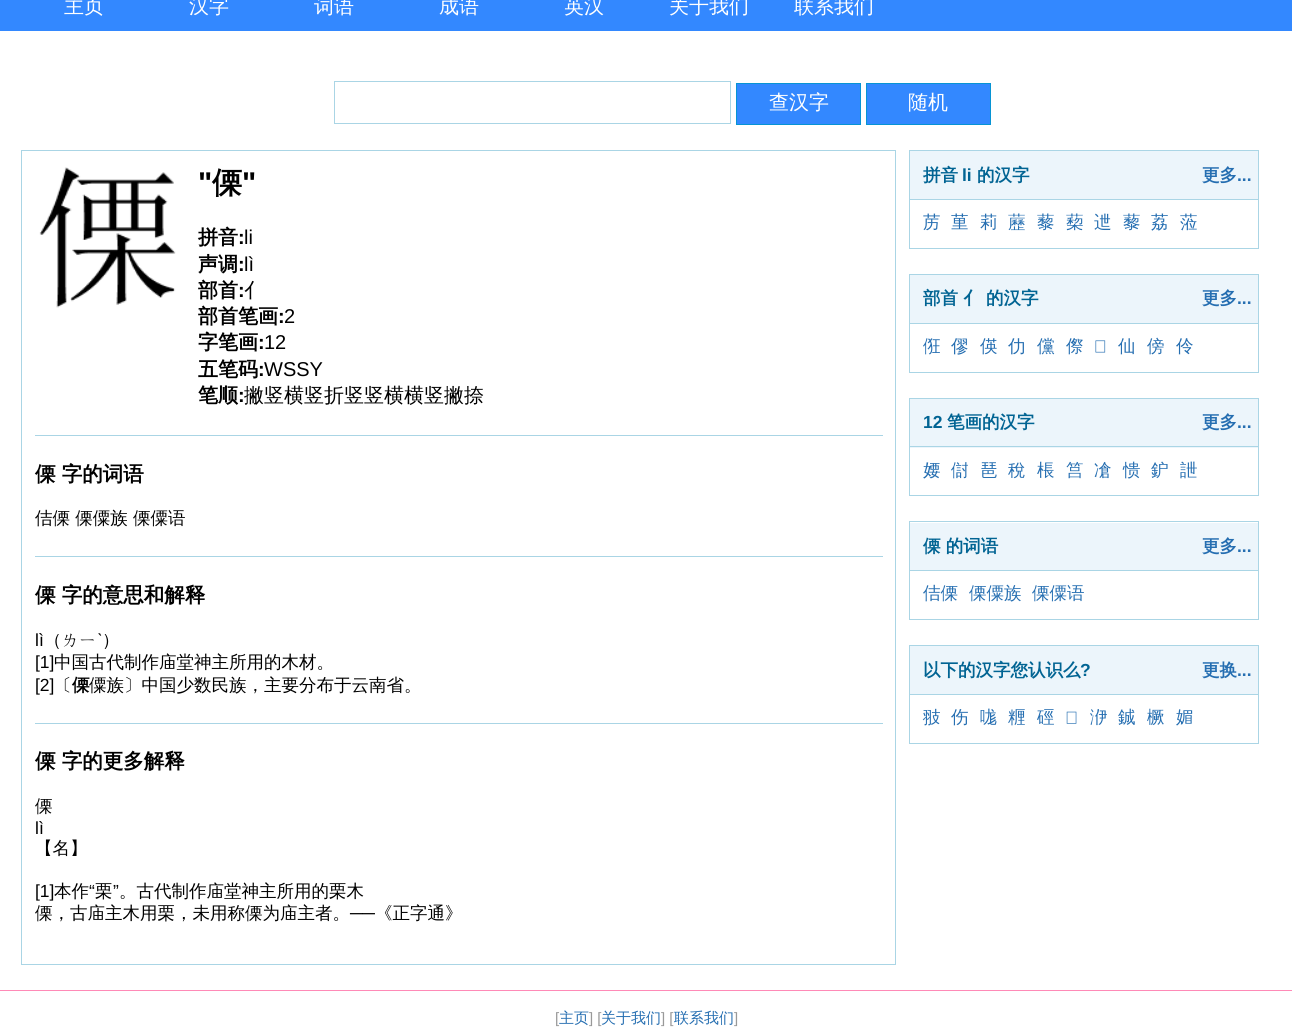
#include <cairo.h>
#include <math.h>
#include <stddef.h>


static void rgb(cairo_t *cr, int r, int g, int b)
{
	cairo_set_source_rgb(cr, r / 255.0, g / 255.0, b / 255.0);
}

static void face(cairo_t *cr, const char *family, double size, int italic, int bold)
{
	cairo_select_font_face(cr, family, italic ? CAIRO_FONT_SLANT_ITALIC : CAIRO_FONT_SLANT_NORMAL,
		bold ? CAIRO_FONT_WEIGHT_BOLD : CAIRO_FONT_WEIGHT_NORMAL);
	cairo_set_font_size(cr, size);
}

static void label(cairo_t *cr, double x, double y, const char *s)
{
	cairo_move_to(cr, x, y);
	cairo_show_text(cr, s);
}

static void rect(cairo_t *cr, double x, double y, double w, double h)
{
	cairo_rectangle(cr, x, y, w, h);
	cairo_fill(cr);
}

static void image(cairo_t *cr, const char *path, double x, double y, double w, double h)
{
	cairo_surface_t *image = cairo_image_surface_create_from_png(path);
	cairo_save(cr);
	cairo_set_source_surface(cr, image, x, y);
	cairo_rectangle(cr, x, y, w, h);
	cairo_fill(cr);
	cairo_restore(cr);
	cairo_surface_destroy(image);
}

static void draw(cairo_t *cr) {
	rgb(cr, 255, 255, 255);
	cairo_paint(cr);
	rgb(cr, 51, 136, 255);
	rect(cr, 0, 0, 1292, 31);
	face(cr, "WenQuanYi Zen Hei Medium", 20, 0, 0);
	rgb(cr, 255, 255, 255);
	label(cr, 64, 13, "主页");
	label(cr, 189, 13, "汉字");
	label(cr, 314, 13, "词语");
	label(cr, 439, 13, "成语");
	label(cr, 564, 13, "英汉");
	label(cr, 669, 13, "关于我们");
	label(cr, 794, 13, "联系我们");
	cairo_rectangle(cr, 334.5, 81.5, 396, 42);
	rgb(cr, 170, 213, 229);
	cairo_set_line_width(cr, 1);
	cairo_stroke(cr);
	rgb(cr, 51, 136, 255);
	cairo_rectangle(cr, 736.5, 83.5, 124, 41);
	cairo_fill_preserve(cr);
	rgb(cr, 7, 148, 212);
	cairo_stroke(cr);
	rgb(cr, 255, 255, 255);
	label(cr, 769, 109, "查汉字");
	rgb(cr, 51, 136, 255);
	cairo_rectangle(cr, 866.5, 83.5, 124, 41);
	cairo_fill_preserve(cr);
	rgb(cr, 7, 148, 212);
	cairo_stroke(cr);
	rgb(cr, 255, 255, 255);
	label(cr, 908, 109, "随机");
	cairo_rectangle(cr, 21.5, 150.5, 874, 814);
	rgb(cr, 170, 213, 229);
	cairo_stroke(cr);
	image(cr, "image0.png", 39, 167, 137, 141);
	face(cr, "Liberation Sans", 30, 0, 1);
	rgb(cr, 0, 0, 0);
	label(cr, 198, 193, "\"");
	face(cr, "WenQuanYi Zen Hei", 30, 0, 1);
	label(cr, 212, 193, "傈");
	face(cr, "Liberation Sans", 30, 0, 1);
	label(cr, 242, 193, "\"");
	face(cr, "WenQuanYi Zen Hei", 20, 0, 1);
	label(cr, 198, 244, "拼音");
	face(cr, "Liberation Sans", 20, 0, 1);
	label(cr, 238, 244, ":");
	face(cr, "Liberation Sans", 20, 0, 0);
	label(cr, 244, 244, "li");
	face(cr, "WenQuanYi Zen Hei", 20, 0, 1);
	label(cr, 198, 271, "声调");
	face(cr, "Liberation Sans", 20, 0, 1);
	label(cr, 238, 271, ":");
	face(cr, "Liberation Sans", 20, 0, 0);
	label(cr, 244, 271, "lì");
	face(cr, "WenQuanYi Zen Hei", 20, 0, 1);
	label(cr, 198, 297, "部首");
	face(cr, "Liberation Sans", 20, 0, 1);
	label(cr, 238, 297, ":");
	face(cr, "WenQuanYi Zen Hei Medium", 20, 0, 0);
	label(cr, 244, 297, "亻");
	face(cr, "WenQuanYi Zen Hei", 20, 0, 1);
	label(cr, 198, 323, "部首笔画");
	face(cr, "Liberation Sans", 20, 0, 1);
	label(cr, 278, 323, ":");
	face(cr, "Liberation Sans", 20, 0, 0);
	label(cr, 284, 323, "2");
	face(cr, "WenQuanYi Zen Hei", 20, 0, 1);
	label(cr, 198, 349, "字笔画");
	face(cr, "Liberation Sans", 20, 0, 1);
	label(cr, 258, 349, ":");
	face(cr, "Liberation Sans", 20, 0, 0);
	label(cr, 264, 349, "12");
	face(cr, "WenQuanYi Zen Hei", 20, 0, 1);
	label(cr, 198, 376, "五笔码");
	face(cr, "Liberation Sans", 20, 0, 1);
	label(cr, 258, 376, ":");
	face(cr, "Liberation Sans", 20, 0, 0);
	label(cr, 264, 376, "WSSY");
	face(cr, "WenQuanYi Zen Hei", 20, 0, 1);
	label(cr, 198, 402, "笔顺");
	face(cr, "Liberation Sans", 20, 0, 1);
	label(cr, 238, 402, ":");
	face(cr, "WenQuanYi Zen Hei Medium", 20, 0, 0);
	label(cr, 244, 402, "撇竖横竖折竖竖横横竖撇捺");
	rgb(cr, 170, 213, 229);
	rect(cr, 35, 435, 848, 1);
	face(cr, "WenQuanYi Zen Hei", 20.5, 0, 1);
	rgb(cr, 0, 0, 0);
	label(cr, 35, 481, "傈 字的词语");
	face(cr, "WenQuanYi Zen Hei Medium", 17.5, 0, 0);
	label(cr, 35, 524, "佶傈 傈僳族 傈僳语");
	rgb(cr, 170, 213, 229);
	rect(cr, 35, 556, 848, 1);
	face(cr, "WenQuanYi Zen Hei", 20.5, 0, 1);
	rgb(cr, 0, 0, 0);
	label(cr, 35, 602, "傈 字的意思和解释");
	face(cr, "Liberation Sans", 17.5, 0, 0);
	label(cr, 35, 646, "lì");
	face(cr, "WenQuanYi Zen Hei Medium", 17.5, 0, 0);
	label(cr, 44, 646, "（ㄌㄧ");
	face(cr, "Liberation Sans", 17.5, 0, 0);
	label(cr, 97, 646, "ˋ");
	face(cr, "WenQuanYi Zen Hei Medium", 17.5, 0, 0);
	label(cr, 102, 646, "）");
	face(cr, "Liberation Sans", 17.5, 0, 0);
	label(cr, 35, 668, "[1]");
	face(cr, "WenQuanYi Zen Hei Medium", 17.5, 0, 0);
	label(cr, 54, 668, "中国古代制作庙堂神主所用的木材。");
	face(cr, "Liberation Sans", 17.5, 0, 0);
	label(cr, 35, 691, "[2]");
	face(cr, "WenQuanYi Zen Hei Medium", 17.5, 0, 0);
	label(cr, 54, 691, "〔");
	face(cr, "WenQuanYi Zen Hei", 17.5, 0, 1);
	label(cr, 72, 691, "傈");
	face(cr, "WenQuanYi Zen Hei Medium", 17.5, 0, 0);
	label(cr, 89, 691, "僳族〕中国少数民族，主要分布于云南省。");
	rgb(cr, 170, 213, 229);
	rect(cr, 35, 723, 848, 1);
	face(cr, "WenQuanYi Zen Hei", 20.5, 0, 1);
	rgb(cr, 0, 0, 0);
	label(cr, 35, 768, "傈 字的更多解释");
	face(cr, "WenQuanYi Zen Hei Medium", 17.5, 0, 0);
	label(cr, 35, 812, "傈");
	face(cr, "Liberation Sans", 17.5, 0, 0);
	label(cr, 35, 834, "lì");
	face(cr, "WenQuanYi Zen Hei Medium", 17.5, 0, 0);
	label(cr, 35, 854, "【名】");
	face(cr, "Liberation Sans", 17.5, 0, 0);
	label(cr, 35, 897, "[1]");
	face(cr, "WenQuanYi Zen Hei Medium", 17.5, 0, 0);
	label(cr, 54, 897, "本作");
	face(cr, "Liberation Sans", 17.5, 0, 0);
	label(cr, 89, 897, "“");
	face(cr, "WenQuanYi Zen Hei Medium", 17.5, 0, 0);
	label(cr, 95, 897, "栗");
	face(cr, "Liberation Sans", 17.5, 0, 0);
	label(cr, 113, 897, "”");
	face(cr, "WenQuanYi Zen Hei Medium", 17.5, 0, 0);
	label(cr, 119, 897, "。古代制作庙堂神主所用的栗木");
	label(cr, 35, 919, "傈，古庙主木用栗，未用称傈为庙主者。");
	face(cr, "Liberation Sans", 17.5, 0, 0);
	label(cr, 350, 919, "──");
	face(cr, "WenQuanYi Zen Hei Medium", 17.5, 0, 0);
	label(cr, 375, 919, "《正字通》");
	cairo_rectangle(cr, 909.5, 150.5, 349, 98);
	rgb(cr, 170, 213, 229);
	cairo_stroke(cr);
	rgb(cr, 236, 245, 251);
	rect(cr, 910, 151, 348, 48);
	rgb(cr, 170, 213, 229);
	rect(cr, 910, 199, 348, 1);
	face(cr, "WenQuanYi Zen Hei", 17.5, 0, 1);
	rgb(cr, 1, 100, 147);
	label(cr, 923, 181, "拼音");
	face(cr, "Liberation Sans", 17.5, 0, 1);
	label(cr, 962, 181, "li");
	face(cr, "WenQuanYi Zen Hei", 17.5, 0, 1);
	label(cr, 977, 181, "的汉字");
	rgb(cr, 37, 110, 177);
	label(cr, 1202, 181, "更多");
	face(cr, "Liberation Sans", 17.5, 0, 1);
	label(cr, 1237, 181, "...");
	face(cr, "WenQuanYi Zen Hei Medium", 17.5, 0, 0);
	label(cr, 923, 228, "苈");
	label(cr, 951, 228, "荲");
	label(cr, 980, 228, "莉");
	label(cr, 1008, 228, "藶");
	label(cr, 1037, 228, "藜");
	label(cr, 1066, 228, "蔾");
	label(cr, 1094, 228, "迣");
	label(cr, 1123, 228, "藜");
	label(cr, 1151, 228, "荔");
	label(cr, 1180, 228, "蒞");
	cairo_rectangle(cr, 909.5, 274.5, 349, 98);
	rgb(cr, 170, 213, 229);
	cairo_stroke(cr);
	rgb(cr, 236, 245, 251);
	rect(cr, 910, 275, 348, 48);
	rgb(cr, 170, 213, 229);
	rect(cr, 910, 323, 348, 1);
	face(cr, "WenQuanYi Zen Hei", 17.5, 0, 1);
	rgb(cr, 1, 100, 147);
	label(cr, 923, 304, "部首 亻 的汉字");
	rgb(cr, 37, 110, 177);
	label(cr, 1202, 304, "更多");
	face(cr, "Liberation Sans", 17.5, 0, 1);
	label(cr, 1237, 304, "...");
	face(cr, "WenQuanYi Zen Hei Medium", 17.5, 0, 0);
	label(cr, 923, 352, "俇");
	label(cr, 951, 352, "僇");
	label(cr, 980, 352, "偀");
	label(cr, 1008, 352, "仂");
	label(cr, 1037, 352, "儻");
	label(cr, 1066, 352, "傺");
	image(cr, "image1.png", 1095, 340, 11, 13);
	label(cr, 1118, 352, "仙");
	label(cr, 1147, 352, "傍");
	label(cr, 1176, 352, "伶");
	cairo_rectangle(cr, 909.5, 398.5, 349, 97);
	rgb(cr, 170, 213, 229);
	cairo_stroke(cr);
	rgb(cr, 236, 245, 251);
	rect(cr, 910, 399, 348, 49);
	rgb(cr, 170, 213, 229);
	rect(cr, 910, 446, 348, 1);
	face(cr, "Liberation Sans", 17.5, 0, 1);
	rgb(cr, 1, 100, 147);
	label(cr, 923, 428, "12");
	face(cr, "WenQuanYi Zen Hei", 17.5, 0, 1);
	label(cr, 947, 428, "笔画的汉字");
	rgb(cr, 37, 110, 177);
	label(cr, 1202, 428, "更多");
	face(cr, "Liberation Sans", 17.5, 0, 1);
	label(cr, 1237, 428, "...");
	face(cr, "WenQuanYi Zen Hei Medium", 17.5, 0, 0);
	label(cr, 923, 476, "婹");
	label(cr, 951, 476, "傠");
	label(cr, 980, 476, "琶");
	label(cr, 1008, 476, "稅");
	label(cr, 1037, 476, "棖");
	label(cr, 1066, 476, "筥");
	label(cr, 1094, 476, "凔");
	label(cr, 1123, 476, "愦");
	label(cr, 1151, 476, "鈩");
	label(cr, 1180, 476, "詍");
	cairo_rectangle(cr, 909.5, 521.5, 349, 98);
	rgb(cr, 170, 213, 229);
	cairo_stroke(cr);
	rgb(cr, 236, 245, 251);
	rect(cr, 910, 523, 348, 47);
	rgb(cr, 170, 213, 229);
	rect(cr, 910, 570, 348, 1);
	face(cr, "WenQuanYi Zen Hei", 17.5, 0, 1);
	rgb(cr, 1, 100, 147);
	label(cr, 923, 552, "傈 的词语");
	rgb(cr, 37, 110, 177);
	label(cr, 1202, 552, "更多");
	face(cr, "Liberation Sans", 17.5, 0, 1);
	label(cr, 1237, 552, "...");
	face(cr, "WenQuanYi Zen Hei Medium", 17.5, 0, 0);
	label(cr, 923, 599, "佶傈");
	label(cr, 969, 599, "傈僳族");
	label(cr, 1032, 599, "傈僳语");
	cairo_rectangle(cr, 909.5, 645.5, 349, 98);
	rgb(cr, 170, 213, 229);
	cairo_stroke(cr);
	rgb(cr, 236, 245, 251);
	rect(cr, 910, 646, 348, 48);
	rgb(cr, 170, 213, 229);
	rect(cr, 910, 694, 348, 1);
	face(cr, "WenQuanYi Zen Hei", 17.5, 0, 1);
	rgb(cr, 1, 100, 147);
	label(cr, 923, 676, "以下的汉字您认识么");
	face(cr, "Liberation Sans", 17.5, 0, 1);
	label(cr, 1080, 676, "?");
	face(cr, "WenQuanYi Zen Hei", 17.5, 0, 1);
	rgb(cr, 37, 110, 177);
	label(cr, 1202, 676, "更换");
	face(cr, "Liberation Sans", 17.5, 0, 1);
	label(cr, 1237, 676, "...");
	face(cr, "WenQuanYi Zen Hei Medium", 17.5, 0, 0);
	label(cr, 923, 723, "翄");
	label(cr, 951, 723, "伤");
	label(cr, 980, 723, "哤");
	label(cr, 1008, 723, "糎");
	label(cr, 1037, 723, "硜");
	image(cr, "image2.png", 1066, 711, 11, 13);
	label(cr, 1090, 723, "洢");
	label(cr, 1118, 723, "鋮");
	label(cr, 1147, 723, "橛");
	label(cr, 1176, 723, "媚");
	rgb(cr, 255, 138, 183);
	rect(cr, 0, 990, 1292, 1);
	face(cr, "Liberation Sans", 15, 0, 0);
	rgb(cr, 153, 153, 153);
	label(cr, 555, 1023, "[");
	face(cr, "WenQuanYi Zen Hei Medium", 15, 0, 0);
	rgb(cr, 37, 110, 177);
	label(cr, 559, 1023, "主页");
	face(cr, "Liberation Sans", 15, 0, 0);
	rgb(cr, 153, 153, 153);
	label(cr, 589, 1023, "] [");
	face(cr, "WenQuanYi Zen Hei Medium", 15, 0, 0);
	rgb(cr, 37, 110, 177);
	label(cr, 601, 1023, "关于我们");
	face(cr, "Liberation Sans", 15, 0, 0);
	rgb(cr, 153, 153, 153);
	label(cr, 661, 1023, "] [");
	face(cr, "WenQuanYi Zen Hei Medium", 15, 0, 0);
	rgb(cr, 37, 110, 177);
	label(cr, 674, 1023, "联系我们");
	face(cr, "Liberation Sans", 15, 0, 0);
	rgb(cr, 153, 153, 153);
	label(cr, 734, 1023, "]");
}

int main(void) {
	cairo_surface_t *surface = cairo_image_surface_create(CAIRO_FORMAT_RGB24, 1292, 1027);
	cairo_t *cr = cairo_create(surface);
	cairo_font_options_t *options = cairo_font_options_create();
	cairo_font_options_set_hint_metrics(options, CAIRO_HINT_METRICS_OFF);
	cairo_font_options_set_hint_style(options, CAIRO_HINT_STYLE_NONE);
	cairo_set_font_options(cr, options);
	cairo_set_miter_limit(cr, 4);
	draw(cr);
	cairo_surface_write_to_png(surface, "render.png");
	cairo_font_options_destroy(options);
	cairo_destroy(cr);
	cairo_surface_destroy(surface);
	return 0;
}
